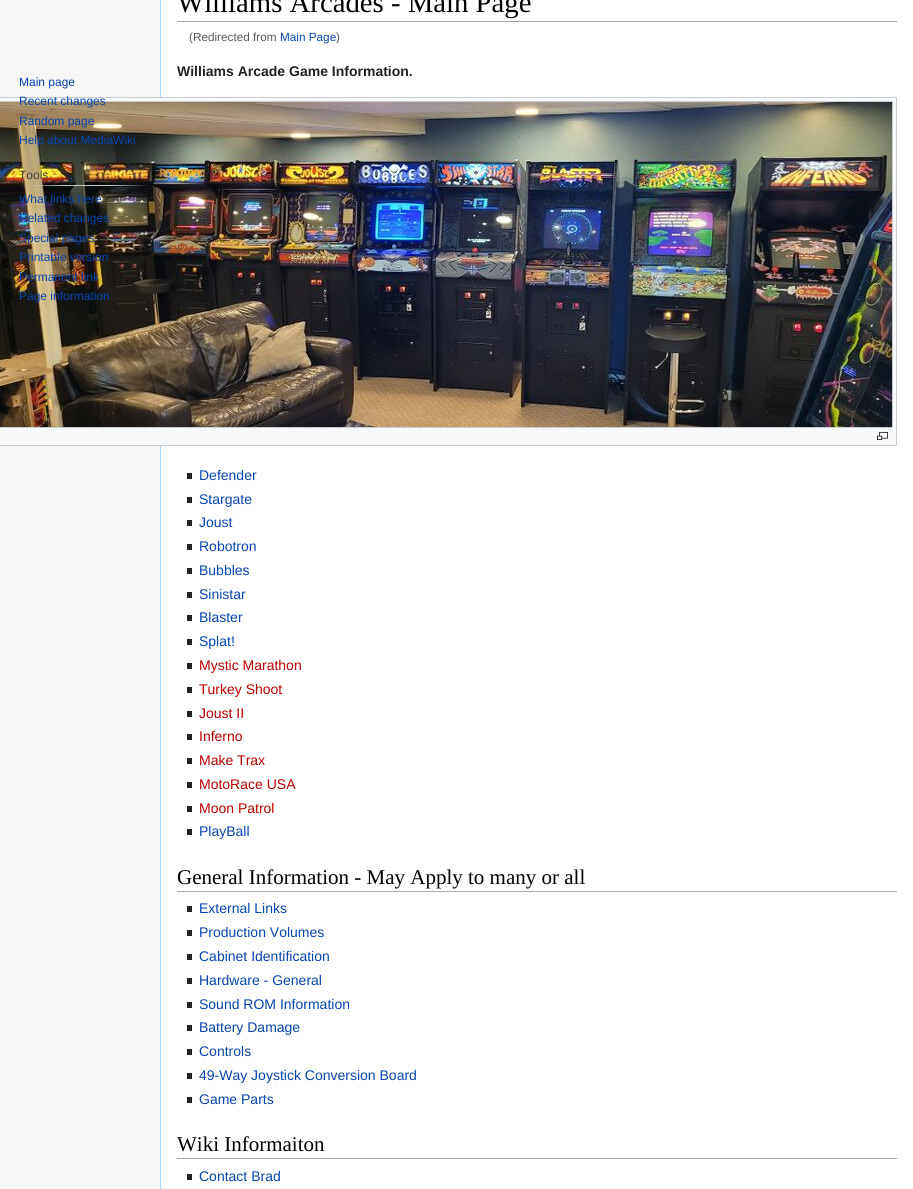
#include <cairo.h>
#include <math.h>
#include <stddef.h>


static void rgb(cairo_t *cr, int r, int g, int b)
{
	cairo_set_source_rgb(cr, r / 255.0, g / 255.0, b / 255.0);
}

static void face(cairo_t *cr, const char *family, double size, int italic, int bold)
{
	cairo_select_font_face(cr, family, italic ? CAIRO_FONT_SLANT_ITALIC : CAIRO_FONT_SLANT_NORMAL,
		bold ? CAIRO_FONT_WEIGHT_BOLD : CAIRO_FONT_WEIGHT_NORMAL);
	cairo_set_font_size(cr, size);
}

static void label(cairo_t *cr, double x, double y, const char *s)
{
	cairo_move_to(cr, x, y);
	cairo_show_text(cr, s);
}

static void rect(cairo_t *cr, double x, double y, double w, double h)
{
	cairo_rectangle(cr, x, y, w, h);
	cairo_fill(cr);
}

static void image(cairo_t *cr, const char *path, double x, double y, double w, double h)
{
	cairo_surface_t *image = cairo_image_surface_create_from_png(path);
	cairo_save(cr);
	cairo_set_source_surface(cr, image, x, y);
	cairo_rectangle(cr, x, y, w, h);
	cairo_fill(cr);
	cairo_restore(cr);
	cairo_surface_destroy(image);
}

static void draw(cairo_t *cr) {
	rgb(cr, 246, 246, 246);
	cairo_paint(cr);
	face(cr, "Liberation Sans", 12, 0, 0);
	rgb(cr, 6, 69, 173);
	label(cr, 19, 86, "Main page");
	rgb(cr, 255, 255, 255);
	rect(cr, 161, 0, 752, 1189);
	rgb(cr, 167, 215, 249);
	rect(cr, 160, 0, 1, 1189);
	rgb(cr, 248, 249, 250);
	cairo_rectangle(cr, -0.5, 97.5, 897, 348);
	cairo_fill_preserve(cr);
	rgb(cr, 200, 204, 209);
	cairo_set_line_width(cr, 1);
	cairo_stroke(cr);
	cairo_rectangle(cr, -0.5, 101.5, 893, 326);
	cairo_stroke(cr);
	image(cr, "image0.png", 0, 102, 892, 325);
	rgb(cr, 6, 69, 173);
	label(cr, 19, 105, "Recent changes");
	label(cr, 19, 125, "Random page");
	label(cr, 19, 144, "Help about MediaWiki");
	rgb(cr, 68, 68, 68);
	label(cr, 19, 179, "Tools");
	rgb(cr, 6, 69, 173);
	label(cr, 19, 203, "What links here");
	label(cr, 19, 222, "Related changes");
	label(cr, 19, 242, "Special pages");
	label(cr, 19, 261, "Printable version");
	label(cr, 19, 281, "Permanent link");
	label(cr, 19, 300, "Page information");
	rgb(cr, 162, 169, 177);
	rect(cr, 177, 21, 720, 1);
	face(cr, "Liberation Serif", 28.75, 0, 0);
	rgb(cr, 0, 0, 0);
	label(cr, 177, 12, "Williams Arcades - Main Page");
	face(cr, "Liberation Sans", 11.75, 0, 0);
	rgb(cr, 84, 89, 93);
	label(cr, 189, 41, "(Redirected from");
	rgb(cr, 6, 69, 173);
	label(cr, 280, 41, "Main Page");
	rgb(cr, 84, 89, 93);
	label(cr, 336, 41, ")");
	face(cr, "Liberation Sans", 14, 0, 1);
	rgb(cr, 34, 34, 34);
	label(cr, 177, 76, "Williams Arcade Game Information.");
	image(cr, "image1.png", 877, 432, 11, 8);
	rect(cr, 187, 473, 5, 6);
	face(cr, "Liberation Sans", 14, 0, 0);
	rgb(cr, 6, 69, 173);
	label(cr, 199, 480, "Defender");
	rgb(cr, 34, 34, 34);
	rect(cr, 187, 497, 5, 6);
	rgb(cr, 6, 69, 173);
	label(cr, 199, 504, "Stargate");
	rgb(cr, 34, 34, 34);
	rect(cr, 187, 520, 5, 6);
	rgb(cr, 6, 69, 173);
	label(cr, 199, 527, "Joust");
	rgb(cr, 34, 34, 34);
	rect(cr, 187, 544, 5, 6);
	rgb(cr, 6, 69, 173);
	label(cr, 199, 551, "Robotron");
	rgb(cr, 34, 34, 34);
	rect(cr, 187, 568, 5, 6);
	rgb(cr, 6, 69, 173);
	label(cr, 199, 575, "Bubbles");
	rgb(cr, 34, 34, 34);
	rect(cr, 187, 592, 5, 6);
	rgb(cr, 6, 69, 173);
	label(cr, 199, 599, "Sinistar");
	rgb(cr, 34, 34, 34);
	rect(cr, 187, 615, 5, 6);
	rgb(cr, 6, 69, 173);
	label(cr, 199, 622, "Blaster");
	rgb(cr, 34, 34, 34);
	rect(cr, 187, 639, 5, 6);
	rgb(cr, 6, 69, 173);
	label(cr, 199, 646, "Splat!");
	rgb(cr, 34, 34, 34);
	rect(cr, 187, 663, 5, 6);
	rgb(cr, 186, 0, 0);
	label(cr, 199, 670, "Mystic Marathon");
	rgb(cr, 34, 34, 34);
	rect(cr, 187, 687, 5, 6);
	rgb(cr, 186, 0, 0);
	label(cr, 199, 694, "Turkey Shoot");
	rgb(cr, 34, 34, 34);
	rect(cr, 187, 711, 5, 6);
	rgb(cr, 186, 0, 0);
	label(cr, 199, 718, "Joust II");
	rgb(cr, 34, 34, 34);
	rect(cr, 187, 734, 5, 6);
	rgb(cr, 186, 0, 0);
	label(cr, 199, 741, "Inferno");
	rgb(cr, 34, 34, 34);
	rect(cr, 187, 758, 5, 6);
	rgb(cr, 186, 0, 0);
	label(cr, 199, 765, "Make Trax");
	rgb(cr, 34, 34, 34);
	rect(cr, 187, 782, 5, 6);
	rgb(cr, 186, 0, 0);
	label(cr, 199, 789, "MotoRace USA");
	rgb(cr, 34, 34, 34);
	rect(cr, 187, 806, 5, 6);
	rgb(cr, 186, 0, 0);
	label(cr, 199, 813, "Moon Patrol");
	rgb(cr, 34, 34, 34);
	rect(cr, 187, 829, 5, 6);
	rgb(cr, 6, 69, 173);
	label(cr, 199, 836, "PlayBall");
	rgb(cr, 162, 169, 177);
	rect(cr, 177, 891, 720, 1);
	face(cr, "Liberation Serif", 21, 0, 0);
	rgb(cr, 0, 0, 0);
	label(cr, 177, 884, "General Information - May Apply to many or all");
	rgb(cr, 34, 34, 34);
	rect(cr, 187, 906, 5, 6);
	face(cr, "Liberation Sans", 14, 0, 0);
	rgb(cr, 6, 69, 173);
	label(cr, 199, 913, "External Links");
	rgb(cr, 34, 34, 34);
	rect(cr, 187, 930, 5, 6);
	rgb(cr, 6, 69, 173);
	label(cr, 199, 937, "Production Volumes");
	rgb(cr, 34, 34, 34);
	rect(cr, 187, 954, 5, 6);
	rgb(cr, 6, 69, 173);
	label(cr, 199, 961, "Cabinet Identification");
	rgb(cr, 34, 34, 34);
	rect(cr, 187, 978, 5, 6);
	rgb(cr, 6, 69, 173);
	label(cr, 199, 985, "Hardware - General");
	rgb(cr, 34, 34, 34);
	rect(cr, 187, 1002, 5, 6);
	rgb(cr, 6, 69, 173);
	label(cr, 199, 1009, "Sound ROM Information");
	rgb(cr, 34, 34, 34);
	rect(cr, 187, 1025, 5, 6);
	rgb(cr, 6, 69, 173);
	label(cr, 199, 1032, "Battery Damage");
	rgb(cr, 34, 34, 34);
	rect(cr, 187, 1049, 5, 6);
	rgb(cr, 6, 69, 173);
	label(cr, 199, 1056, "Controls");
	rgb(cr, 34, 34, 34);
	rect(cr, 187, 1073, 5, 6);
	rgb(cr, 6, 69, 173);
	label(cr, 199, 1080, "49-Way Joystick Conversion Board");
	rgb(cr, 34, 34, 34);
	rect(cr, 187, 1097, 5, 6);
	rgb(cr, 6, 69, 173);
	label(cr, 199, 1104, "Game Parts");
	rgb(cr, 162, 169, 177);
	rect(cr, 177, 1158, 720, 1);
	face(cr, "Liberation Serif", 21, 0, 0);
	rgb(cr, 0, 0, 0);
	label(cr, 177, 1151, "Wiki Informaiton");
	rgb(cr, 34, 34, 34);
	rect(cr, 187, 1174, 5, 6);
	face(cr, "Liberation Sans", 14, 0, 0);
	rgb(cr, 6, 69, 173);
	label(cr, 199, 1181, "Contact Brad");
}

int main(void) {
	cairo_surface_t *surface = cairo_image_surface_create(CAIRO_FORMAT_RGB24, 913, 1189);
	cairo_t *cr = cairo_create(surface);
	cairo_font_options_t *options = cairo_font_options_create();
	cairo_font_options_set_hint_metrics(options, CAIRO_HINT_METRICS_OFF);
	cairo_font_options_set_hint_style(options, CAIRO_HINT_STYLE_NONE);
	cairo_set_font_options(cr, options);
	cairo_set_miter_limit(cr, 4);
	draw(cr);
	cairo_surface_write_to_png(surface, "render.png");
	cairo_font_options_destroy(options);
	cairo_destroy(cr);
	cairo_surface_destroy(surface);
	return 0;
}
